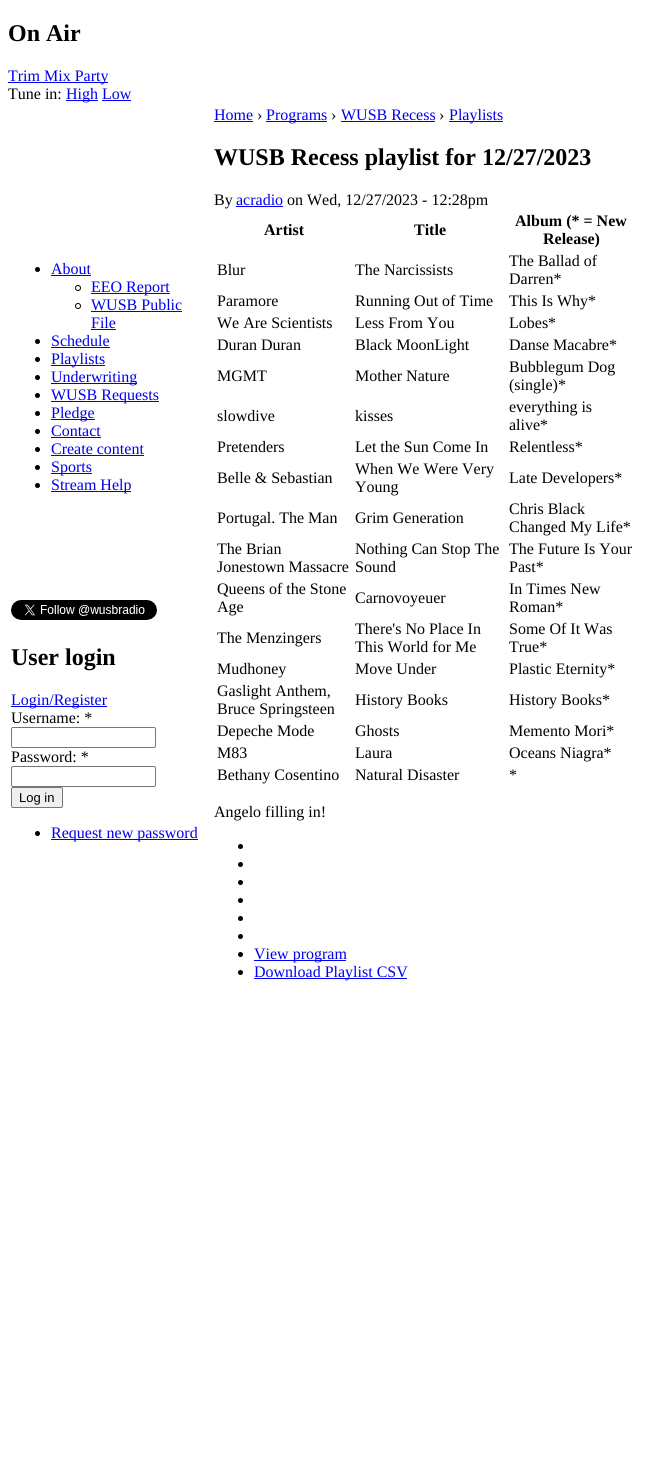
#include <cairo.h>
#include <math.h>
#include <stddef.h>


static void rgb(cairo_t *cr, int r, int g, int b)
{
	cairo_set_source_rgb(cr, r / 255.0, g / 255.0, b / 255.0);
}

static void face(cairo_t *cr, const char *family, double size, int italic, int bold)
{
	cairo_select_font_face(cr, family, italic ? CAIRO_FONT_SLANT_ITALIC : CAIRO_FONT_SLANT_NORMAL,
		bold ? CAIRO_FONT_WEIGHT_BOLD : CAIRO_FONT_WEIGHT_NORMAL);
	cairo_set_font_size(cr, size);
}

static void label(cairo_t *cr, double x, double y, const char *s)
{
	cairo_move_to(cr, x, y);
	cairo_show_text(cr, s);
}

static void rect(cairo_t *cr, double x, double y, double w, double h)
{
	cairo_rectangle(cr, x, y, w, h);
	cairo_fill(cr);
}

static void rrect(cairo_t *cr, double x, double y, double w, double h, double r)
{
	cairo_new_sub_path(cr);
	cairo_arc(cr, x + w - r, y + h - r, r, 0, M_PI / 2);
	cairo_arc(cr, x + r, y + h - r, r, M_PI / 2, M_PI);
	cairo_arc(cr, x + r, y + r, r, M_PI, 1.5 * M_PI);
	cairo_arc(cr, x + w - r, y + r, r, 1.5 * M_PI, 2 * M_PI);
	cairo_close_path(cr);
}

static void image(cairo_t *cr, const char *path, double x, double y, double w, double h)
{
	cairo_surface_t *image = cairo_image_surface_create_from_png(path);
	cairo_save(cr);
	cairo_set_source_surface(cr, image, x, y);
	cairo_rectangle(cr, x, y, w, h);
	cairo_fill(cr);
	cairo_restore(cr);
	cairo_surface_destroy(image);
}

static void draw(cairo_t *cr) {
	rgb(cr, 255, 255, 255);
	cairo_paint(cr);
	face(cr, "Liberation Serif", 24, 0, 1);
	rgb(cr, 0, 0, 0);
	label(cr, 8, 41, "On Air");
	rgb(cr, 0, 0, 238);
	rect(cr, 8, 82, 100, 1);
	face(cr, "Liberation Serif", 16, 0, 0);
	label(cr, 8, 81, "Trim Mix Party");
	rgb(cr, 0, 0, 0);
	label(cr, 8, 99, "Tune in:");
	rgb(cr, 0, 0, 238);
	rect(cr, 66, 100, 32, 1);
	label(cr, 66, 99, "High Low");
	rect(cr, 102, 100, 29, 1);
	rgb(cr, 0, 0, 0);
	cairo_new_path(cr);
	cairo_arc(cr, 37.5, 269.5, 2.5, 0, 2 * M_PI);
	cairo_fill(cr);
	rgb(cr, 0, 0, 238);
	label(cr, 51, 274, "About");
	rect(cr, 51, 275, 40, 1);
	cairo_new_path(cr);
	cairo_arc(cr, 78, 288, 2.5, 0, 2 * M_PI);
	rgb(cr, 0, 0, 0);
	cairo_set_line_width(cr, 1);
	cairo_stroke(cr);
	rgb(cr, 0, 0, 238);
	rect(cr, 91, 293, 79, 1);
	label(cr, 91, 292, "EEO Report");
	cairo_new_path(cr);
	cairo_arc(cr, 78, 306, 2.5, 0, 2 * M_PI);
	rgb(cr, 0, 0, 0);
	cairo_stroke(cr);
	rgb(cr, 0, 0, 238);
	label(cr, 91, 310, "WUSB Public");
	rect(cr, 91, 311, 91, 1);
	label(cr, 91, 328, "File");
	rect(cr, 91, 329, 25, 1);
	rgb(cr, 0, 0, 0);
	cairo_new_path(cr);
	cairo_arc(cr, 37.5, 341.5, 2.5, 0, 2 * M_PI);
	cairo_fill(cr);
	rgb(cr, 0, 0, 238);
	label(cr, 51, 346, "Schedule");
	rect(cr, 51, 347, 59, 1);
	rgb(cr, 0, 0, 0);
	cairo_new_path(cr);
	cairo_arc(cr, 37.5, 359.5, 2.5, 0, 2 * M_PI);
	cairo_fill(cr);
	rgb(cr, 0, 0, 238);
	rect(cr, 51, 365, 54, 1);
	label(cr, 51, 364, "Playlists");
	rgb(cr, 0, 0, 0);
	cairo_new_path(cr);
	cairo_arc(cr, 37.5, 377.5, 2.5, 0, 2 * M_PI);
	cairo_fill(cr);
	rgb(cr, 0, 0, 238);
	rect(cr, 51, 383, 86, 1);
	label(cr, 51, 382, "Underwriting");
	rgb(cr, 0, 0, 0);
	cairo_new_path(cr);
	cairo_arc(cr, 37.5, 395.5, 2.5, 0, 2 * M_PI);
	cairo_fill(cr);
	rgb(cr, 0, 0, 238);
	rect(cr, 51, 401, 108, 1);
	label(cr, 51, 400, "WUSB Requests");
	rgb(cr, 0, 0, 0);
	cairo_new_path(cr);
	cairo_arc(cr, 37.5, 413.5, 2.5, 0, 2 * M_PI);
	cairo_fill(cr);
	rgb(cr, 0, 0, 238);
	rect(cr, 51, 419, 44, 1);
	label(cr, 51, 418, "Pledge");
	rgb(cr, 0, 0, 0);
	cairo_new_path(cr);
	cairo_arc(cr, 37.5, 431.5, 2.5, 0, 2 * M_PI);
	cairo_fill(cr);
	rgb(cr, 0, 0, 238);
	label(cr, 51, 436, "Contact");
	rect(cr, 51, 437, 50, 1);
	rgb(cr, 0, 0, 0);
	cairo_new_path(cr);
	cairo_arc(cr, 37.5, 449.5, 2.5, 0, 2 * M_PI);
	cairo_fill(cr);
	rgb(cr, 0, 0, 238);
	label(cr, 51, 454, "Create content");
	rect(cr, 51, 455, 93, 1);
	rgb(cr, 0, 0, 0);
	cairo_new_path(cr);
	cairo_arc(cr, 37.5, 467.5, 2.5, 0, 2 * M_PI);
	cairo_fill(cr);
	rgb(cr, 0, 0, 238);
	rect(cr, 51, 473, 41, 1);
	label(cr, 51, 472, "Sports");
	rgb(cr, 0, 0, 0);
	cairo_new_path(cr);
	cairo_arc(cr, 37.5, 485.5, 2.5, 0, 2 * M_PI);
	cairo_fill(cr);
	rgb(cr, 0, 0, 238);
	rect(cr, 51, 491, 80, 1);
	label(cr, 51, 490, "Stream Help");
	image(cr, "image0.png", 11, 600, 146, 20);
	face(cr, "Liberation Serif", 24, 0, 1);
	rgb(cr, 0, 0, 0);
	label(cr, 11, 665, "User login");
	rgb(cr, 0, 0, 238);
	rect(cr, 11, 706, 96, 1);
	face(cr, "Liberation Serif", 16, 0, 0);
	label(cr, 11, 705, "Login/Register");
	rgb(cr, 0, 0, 0);
	label(cr, 11, 723, "Username: *");
	rrect(cr, 11.5, 727.5, 144, 20, 1.5);
	rgb(cr, 118, 118, 118);
	cairo_stroke(cr);
	rgb(cr, 0, 0, 0);
	label(cr, 11, 762, "Password: *");
	rrect(cr, 11.5, 766.5, 144, 20, 1.5);
	rgb(cr, 118, 118, 118);
	cairo_stroke(cr);
	rgb(cr, 239, 239, 239);
	rrect(cr, 11.5, 787.5, 51, 20, 1.5);
	cairo_fill_preserve(cr);
	rgb(cr, 118, 118, 118);
	cairo_stroke(cr);
	face(cr, "Liberation Sans", 13, 0, 0);
	rgb(cr, 0, 0, 0);
	label(cr, 19, 802, "Log in");
	cairo_new_path(cr);
	cairo_arc(cr, 37.5, 833.5, 2.5, 0, 2 * M_PI);
	cairo_fill(cr);
	rgb(cr, 0, 0, 238);
	rect(cr, 51, 839, 147, 1);
	face(cr, "Liberation Serif", 16, 0, 0);
	label(cr, 51, 838, "Request new password");
	label(cr, 214, 120, "Home");
	rect(cr, 214, 121, 39, 1);
	rgb(cr, 0, 0, 0);
	label(cr, 257, 120, "›");
	rgb(cr, 0, 0, 238);
	rect(cr, 266, 121, 61, 1);
	label(cr, 266, 120, "Programs");
	rgb(cr, 0, 0, 0);
	label(cr, 331, 120, "›");
	rgb(cr, 0, 0, 238);
	label(cr, 341, 120, "WUSB Recess");
	rect(cr, 341, 121, 94, 1);
	rgb(cr, 0, 0, 0);
	label(cr, 439, 120, "›");
	rgb(cr, 0, 0, 238);
	rect(cr, 449, 121, 54, 1);
	label(cr, 449, 120, "Playlists");
	face(cr, "Liberation Serif", 24, 0, 1);
	rgb(cr, 0, 0, 0);
	label(cr, 214, 165, "WUSB Recess playlist for 12/27/2023");
	face(cr, "Liberation Serif", 16, 0, 0);
	label(cr, 214, 205, "By");
	rgb(cr, 0, 0, 238);
	rect(cr, 236, 206, 47, 1);
	label(cr, 236, 205, "acradio");
	rgb(cr, 0, 0, 0);
	label(cr, 287, 205, "on Wed, 12/27/2023 - 12:28pm");
	face(cr, "Liberation Serif", 16, 0, 1);
	label(cr, 264, 235, "Artist");
	label(cr, 414, 235, "Title");
	label(cr, 515, 226, "Album (* = New");
	label(cr, 543, 244, "Release)");
	face(cr, "Liberation Serif", 16, 0, 0);
	label(cr, 217, 275, "Blur");
	label(cr, 355, 275, "The Narcissists");
	label(cr, 509, 266, "The Ballad of");
	label(cr, 509, 284, "Darren*");
	label(cr, 217, 306, "Paramore");
	label(cr, 355, 306, "Running Out of Time");
	label(cr, 509, 306, "This Is Why*");
	label(cr, 217, 328, "We Are Scientists");
	label(cr, 355, 328, "Less From You");
	label(cr, 509, 328, "Lobes*");
	label(cr, 217, 350, "Duran Duran");
	label(cr, 355, 350, "Black MoonLight");
	label(cr, 509, 350, "Danse Macabre*");
	label(cr, 217, 381, "MGMT");
	label(cr, 355, 381, "Mother Nature");
	label(cr, 509, 372, "Bubblegum Dog");
	label(cr, 509, 390, "(single)*");
	label(cr, 217, 421, "slowdive");
	label(cr, 355, 421, "kisses");
	label(cr, 509, 412, "everything is");
	label(cr, 509, 430, "alive*");
	label(cr, 217, 452, "Pretenders");
	label(cr, 355, 452, "Let the Sun Come In");
	label(cr, 509, 452, "Relentless*");
	label(cr, 217, 483, "Belle & Sebastian");
	label(cr, 355, 474, "When We Were Very");
	label(cr, 355, 492, "Young");
	label(cr, 509, 483, "Late Developers*");
	label(cr, 217, 523, "Portugal. The Man");
	label(cr, 355, 523, "Grim Generation");
	label(cr, 509, 514, "Chris Black");
	label(cr, 509, 532, "Changed My Life*");
	label(cr, 217, 554, "The Brian");
	label(cr, 217, 572, "Jonestown Massacre");
	label(cr, 355, 554, "Nothing Can Stop The");
	label(cr, 355, 572, "Sound");
	label(cr, 509, 554, "The Future Is Your");
	label(cr, 509, 572, "Past*");
	label(cr, 217, 594, "Queens of the Stone");
	label(cr, 217, 612, "Age");
	label(cr, 355, 603, "Carnovoyeuer");
	label(cr, 509, 594, "In Times New");
	label(cr, 509, 612, "Roman*");
	label(cr, 217, 643, "The Menzingers");
	label(cr, 355, 634, "There's No Place In");
	label(cr, 355, 652, "This World for Me");
	label(cr, 509, 634, "Some Of It Was");
	label(cr, 509, 652, "True*");
	label(cr, 217, 674, "Mudhoney");
	label(cr, 355, 674, "Move Under");
	label(cr, 509, 674, "Plastic Eternity*");
	label(cr, 217, 696, "Gaslight Anthem,");
	label(cr, 217, 714, "Bruce Springsteen");
	label(cr, 355, 705, "History Books");
	label(cr, 509, 705, "History Books*");
	label(cr, 217, 736, "Depeche Mode");
	label(cr, 355, 736, "Ghosts");
	label(cr, 509, 736, "Memento Mori*");
	label(cr, 217, 758, "M83");
	label(cr, 355, 758, "Laura");
	label(cr, 509, 758, "Oceans Niagra*");
	label(cr, 217, 780, "Bethany Cosentino");
	label(cr, 355, 780, "Natural Disaster");
	label(cr, 509, 780, "*");
	label(cr, 214, 817, "Angelo filling in!");
	cairo_new_path(cr);
	cairo_arc(cr, 240.5, 846.5, 2.5, 0, 2 * M_PI);
	cairo_fill(cr);
	cairo_arc(cr, 240.5, 864.5, 2.5, 0, 2 * M_PI);
	cairo_fill(cr);
	cairo_arc(cr, 240.5, 882.5, 2.5, 0, 2 * M_PI);
	cairo_fill(cr);
	cairo_arc(cr, 240.5, 900.5, 2.5, 0, 2 * M_PI);
	cairo_fill(cr);
	cairo_arc(cr, 240.5, 918.5, 2.5, 0, 2 * M_PI);
	cairo_fill(cr);
	cairo_arc(cr, 240.5, 936.5, 2.5, 0, 2 * M_PI);
	cairo_fill(cr);
	cairo_arc(cr, 240.5, 954.5, 2.5, 0, 2 * M_PI);
	cairo_fill(cr);
	rgb(cr, 0, 0, 238);
	rect(cr, 254, 960, 92, 1);
	label(cr, 254, 959, "View program");
	rgb(cr, 0, 0, 0);
	cairo_new_path(cr);
	cairo_arc(cr, 240.5, 972.5, 2.5, 0, 2 * M_PI);
	cairo_fill(cr);
	rgb(cr, 0, 0, 238);
	rect(cr, 254, 978, 153, 1);
	label(cr, 254, 977, "Download Playlist CSV");
}

int main(void) {
	cairo_surface_t *surface = cairo_image_surface_create(CAIRO_FORMAT_RGB24, 648, 1474);
	cairo_t *cr = cairo_create(surface);
	cairo_font_options_t *options = cairo_font_options_create();
	cairo_font_options_set_hint_metrics(options, CAIRO_HINT_METRICS_OFF);
	cairo_font_options_set_hint_style(options, CAIRO_HINT_STYLE_NONE);
	cairo_set_font_options(cr, options);
	cairo_set_miter_limit(cr, 4);
	draw(cr);
	cairo_surface_write_to_png(surface, "render.png");
	cairo_font_options_destroy(options);
	cairo_destroy(cr);
	cairo_surface_destroy(surface);
	return 0;
}
